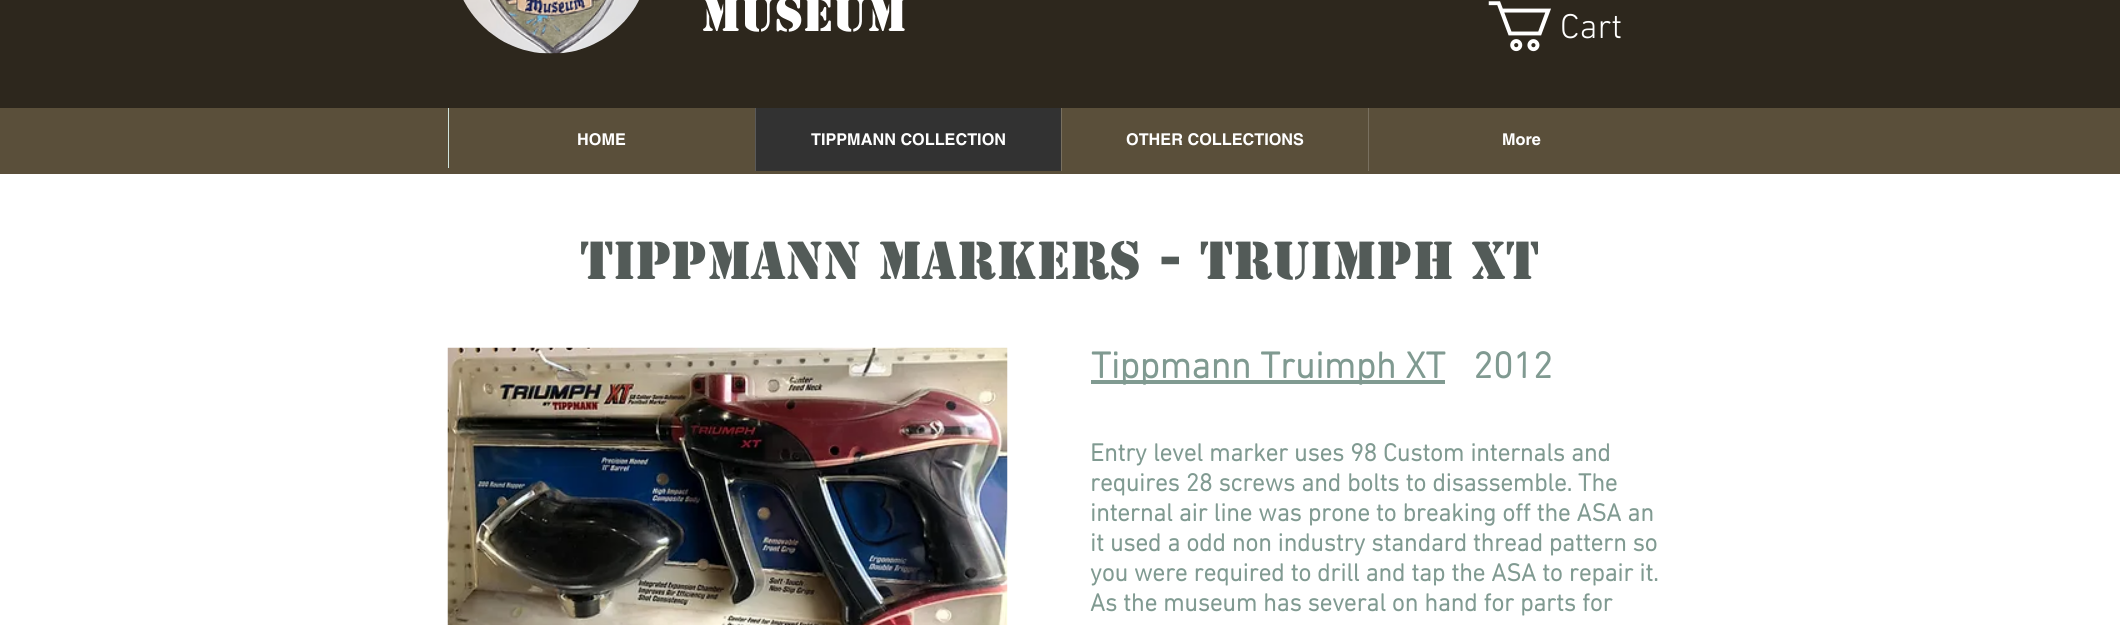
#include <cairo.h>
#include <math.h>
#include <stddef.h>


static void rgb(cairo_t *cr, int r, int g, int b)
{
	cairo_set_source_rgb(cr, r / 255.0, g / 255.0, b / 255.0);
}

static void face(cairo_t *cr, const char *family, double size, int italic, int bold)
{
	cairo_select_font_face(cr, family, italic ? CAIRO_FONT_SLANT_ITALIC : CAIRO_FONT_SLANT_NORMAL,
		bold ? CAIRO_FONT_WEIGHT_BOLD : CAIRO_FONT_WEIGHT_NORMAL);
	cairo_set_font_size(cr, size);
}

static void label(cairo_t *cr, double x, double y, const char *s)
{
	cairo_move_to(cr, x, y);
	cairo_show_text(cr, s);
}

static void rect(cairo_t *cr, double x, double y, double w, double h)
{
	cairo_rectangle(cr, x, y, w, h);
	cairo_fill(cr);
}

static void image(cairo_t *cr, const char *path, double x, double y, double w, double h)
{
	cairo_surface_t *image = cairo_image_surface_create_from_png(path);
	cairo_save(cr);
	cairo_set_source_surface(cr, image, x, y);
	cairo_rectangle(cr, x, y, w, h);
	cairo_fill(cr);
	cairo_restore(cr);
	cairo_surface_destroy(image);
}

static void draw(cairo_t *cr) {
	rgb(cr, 255, 255, 255);
	cairo_paint(cr);
	rgb(cr, 90, 79, 58);
	rect(cr, 0, 108, 2120, 66);
	rgb(cr, 208, 229, 222);
	rect(cr, 448, 108, 1, 60);
	rgb(cr, 45, 39, 29);
	rect(cr, 0, 0, 2120, 108);
	image(cr, "image0.png", 463, 0, 176, 54);
	face(cr, "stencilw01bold", 45, 0, 1);
	rgb(cr, 255, 255, 255);
	label(cr, 701, 31, "Museum");
	image(cr, "image1.png", 1488, 1, 63, 51);
	face(cr, "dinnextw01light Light", 35, 0, 0);
	label(cr, 1560, 38, "Cart");
	face(cr, "helvetica", 16.25, 0, 1);
	label(cr, 577, 145, "HOME");
	rgb(cr, 50, 50, 50);
	rect(cr, 756, 108, 305, 63);
	rgb(cr, 89, 89, 89);
	rect(cr, 755, 108, 1, 63);
	rgb(cr, 255, 255, 255);
	label(cr, 811, 145, "TIPPMANN COLLECTION");
	rgb(cr, 121, 112, 95);
	rect(cr, 1061, 108, 1, 63);
	rgb(cr, 255, 255, 255);
	label(cr, 1126, 145, "OTHER COLLECTIONS");
	rgb(cr, 121, 112, 95);
	rect(cr, 1368, 108, 1, 63);
	rgb(cr, 255, 255, 255);
	label(cr, 1502, 145, "More");
	face(cr, "stencilw01bold", 50, 0, 1);
	rgb(cr, 83, 91, 88);
	label(cr, 580, 279, "Tippmann Markers - Truimph XT");
	image(cr, "image2.png", 447, 347, 561, 278);
	rgb(cr, 128, 154, 145);
	rect(cr, 1091, 380, 354, 4);
	face(cr, "dinnextw01light", 37.5, 0, 1);
	label(cr, 1091, 378, "Tippmann Truimph XT");
	label(cr, 1473, 378, "2012");
	face(cr, "dinnextw01light", 25, 0, 1);
	label(cr, 1090, 461, "Entry level marker uses 98 Custom internals and");
	label(cr, 1090, 491, "requires 28 screws and bolts to disassemble. The");
	label(cr, 1090, 521, "internal air line was prone to breaking off the ASA an");
	label(cr, 1090, 551, "it used a odd non industry standard thread pattern so");
	label(cr, 1090, 581, "you were required to drill and tap the ASA to repair it.");
	label(cr, 1090, 611, "As the museum has several on hand for parts for");
}

int main(void) {
	cairo_surface_t *surface = cairo_image_surface_create(CAIRO_FORMAT_RGB24, 2120, 625);
	cairo_t *cr = cairo_create(surface);
	cairo_font_options_t *options = cairo_font_options_create();
	cairo_font_options_set_hint_metrics(options, CAIRO_HINT_METRICS_OFF);
	cairo_font_options_set_hint_style(options, CAIRO_HINT_STYLE_NONE);
	cairo_set_font_options(cr, options);
	cairo_set_miter_limit(cr, 4);
	draw(cr);
	cairo_surface_write_to_png(surface, "render.png");
	cairo_font_options_destroy(options);
	cairo_destroy(cr);
	cairo_surface_destroy(surface);
	return 0;
}
